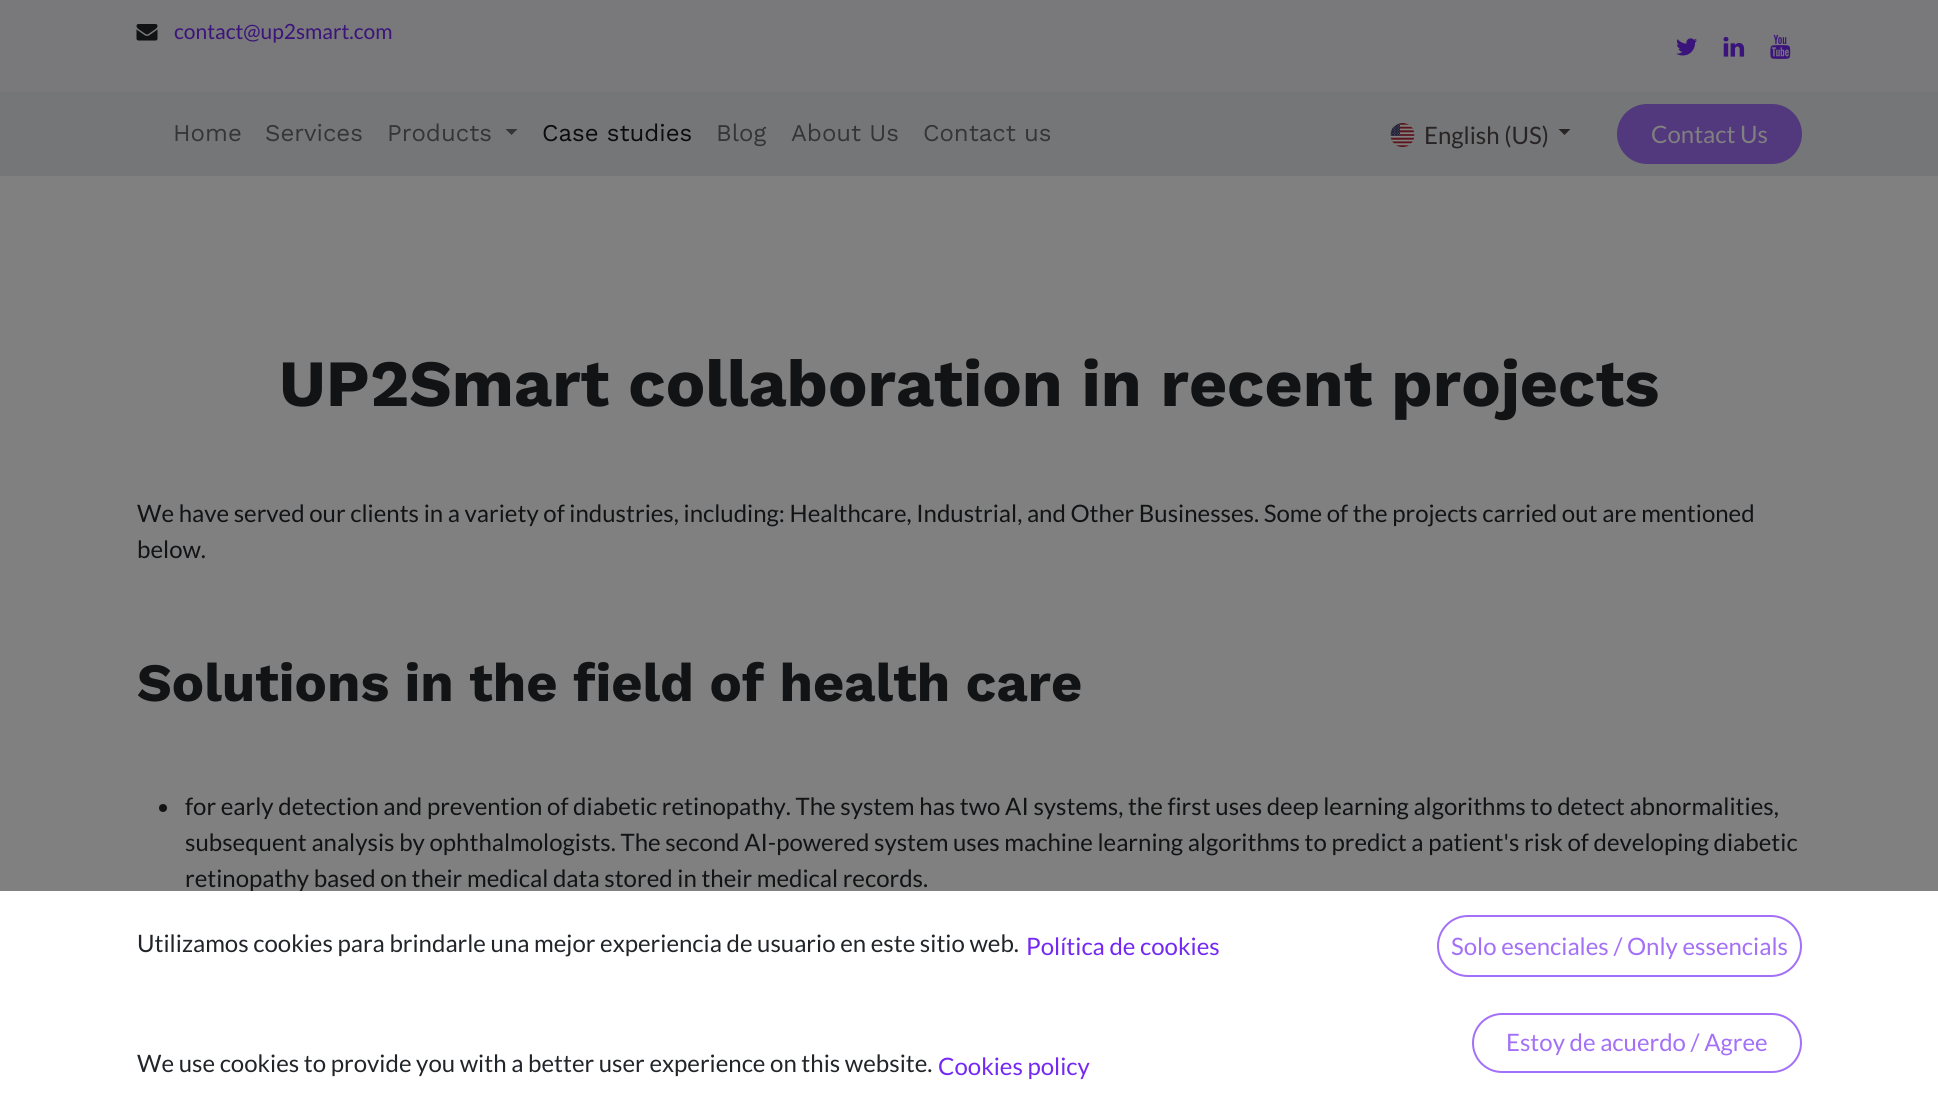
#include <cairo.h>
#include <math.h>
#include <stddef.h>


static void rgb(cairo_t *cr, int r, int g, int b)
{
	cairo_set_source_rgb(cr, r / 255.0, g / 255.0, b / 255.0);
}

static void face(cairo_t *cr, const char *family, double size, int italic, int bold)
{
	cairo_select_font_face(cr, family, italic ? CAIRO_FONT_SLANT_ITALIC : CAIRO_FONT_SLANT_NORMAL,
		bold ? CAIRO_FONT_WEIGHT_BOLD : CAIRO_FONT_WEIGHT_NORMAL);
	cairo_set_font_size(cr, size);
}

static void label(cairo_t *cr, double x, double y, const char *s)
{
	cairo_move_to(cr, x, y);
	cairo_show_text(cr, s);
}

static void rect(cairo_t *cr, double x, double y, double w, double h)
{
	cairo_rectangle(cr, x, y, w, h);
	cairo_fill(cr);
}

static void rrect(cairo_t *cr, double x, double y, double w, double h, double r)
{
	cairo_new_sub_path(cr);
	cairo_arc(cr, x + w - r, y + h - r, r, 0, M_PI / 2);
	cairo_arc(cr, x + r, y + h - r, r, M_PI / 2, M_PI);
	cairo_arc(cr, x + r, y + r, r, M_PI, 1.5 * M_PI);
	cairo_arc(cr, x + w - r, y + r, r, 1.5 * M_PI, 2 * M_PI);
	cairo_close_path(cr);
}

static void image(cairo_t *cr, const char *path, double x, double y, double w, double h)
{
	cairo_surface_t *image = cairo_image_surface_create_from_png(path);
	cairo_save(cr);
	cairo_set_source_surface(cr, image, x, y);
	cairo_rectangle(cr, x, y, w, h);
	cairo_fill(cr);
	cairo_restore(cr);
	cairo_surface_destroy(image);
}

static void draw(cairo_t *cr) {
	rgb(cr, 128, 128, 128);
	cairo_paint(cr);
	rgb(cr, 121, 120, 123);
	rect(cr, 0, 0, 1938, 92);
	image(cr, "image0.png", 136, 24, 22, 17);
	face(cr, "Lato", 21, 0, 0);
	rgb(cr, 58, 20, 122);
	label(cr, 174, 39, "contact@up2smart.com");
	image(cr, "image1.png", 1676, 38, 21, 18);
	image(cr, "image2.png", 1723, 36, 22, 21);
	image(cr, "image3.png", 1770, 34, 21, 25);
	rgb(cr, 117, 118, 120);
	rect(cr, 0, 92, 1938, 84);
	face(cr, "Work Sans", 24, 0, 0);
	rgb(cr, 53, 53, 54);
	label(cr, 173, 141, "Home");
	label(cr, 265, 141, "Services");
	label(cr, 387, 141, "Products");
	cairo_new_path(cr);
	cairo_move_to(cr, 505.5, 129);
	cairo_line_to(cr, 517.5, 129);
	cairo_line_to(cr, 511.5, 135);
	cairo_close_path(cr);
	cairo_fill(cr);
	rgb(cr, 12, 12, 12);
	label(cr, 542, 141, "Case studies");
	rgb(cr, 53, 53, 54);
	label(cr, 716, 141, "Blog");
	label(cr, 791, 141, "About Us");
	label(cr, 923, 141, "Contact us");
	image(cr, "image4.png", 1390, 123, 25, 24);
	face(cr, "Lato", 24, 0, 0);
	rgb(cr, 40, 36, 35);
	label(cr, 1424, 144, "English (US)");
	cairo_new_path(cr);
	cairo_move_to(cr, 1558.5, 129);
	cairo_line_to(cr, 1570.5, 129);
	cairo_line_to(cr, 1564.5, 135);
	cairo_close_path(cr);
	cairo_fill(cr);
	rgb(cr, 82, 56, 124);
	rrect(cr, 1618, 105, 183, 58, 29);
	cairo_fill_preserve(cr);
	cairo_stroke(cr);
	rgb(cr, 128, 128, 128);
	label(cr, 1651, 143, "Contact Us");
	face(cr, "Work Sans", 66, 0, 1);
	rgb(cr, 17, 19, 21);
	label(cr, 279, 406, "UP2Smart collaboration in recent projects");
	face(cr, "Lato", 24, 0, 0);
	label(cr, 137, 522, "We have served our clients in a variety of industries, including: Healthcare, Industrial, and Other Businesses. Some of the projects carried out are mentioned");
	label(cr, 137, 558, "below.");
	face(cr, "Work Sans", 54, 0, 1);
	label(cr, 137, 701, "Solutions in the field of health care");
	cairo_new_path(cr);
	cairo_arc(cr, 163, 808, 4, 0, 2 * M_PI);
	cairo_fill(cr);
	face(cr, "Lato", 24, 0, 0);
	label(cr, 185, 815, "for early detection and prevention of diabetic retinopathy. The system has two AI systems, the first uses deep learning algorithms to detect abnormalities,");
	label(cr, 185, 851, "subsequent analysis by ophthalmologists. The second AI-powered system uses machine learning algorithms to predict a patient's risk of developing diabetic");
	label(cr, 185, 887, "retinopathy based on their medical data stored in their medical records.");
	rgb(cr, 255, 255, 255);
	rect(cr, 0, 891, 1938, 229);
	rgb(cr, 33, 37, 41);
	label(cr, 137, 952, "Utilizamos cookies para brindarle una mejor experiencia de usuario en este sitio web.");
	rgb(cr, 116, 40, 243);
	label(cr, 1026, 955, "Política de cookies");
	rgb(cr, 33, 37, 41);
	label(cr, 137, 1072, "We use cookies to provide you with a better user experience on this website.");
	rgb(cr, 116, 40, 243);
	label(cr, 938, 1075, "Cookies policy");
	rrect(cr, 1438, 916, 363, 60, 30);
	rgb(cr, 163, 112, 247);
	cairo_stroke(cr);
	label(cr, 1451, 955, "Solo esenciales / Only essencials");
	rrect(cr, 1473, 1014, 328, 58, 29);
	cairo_stroke(cr);
	label(cr, 1506, 1051, "Estoy de acuerdo / Agree");
}

int main(void) {
	cairo_surface_t *surface = cairo_image_surface_create(CAIRO_FORMAT_RGB24, 1938, 1120);
	cairo_t *cr = cairo_create(surface);
	cairo_font_options_t *options = cairo_font_options_create();
	cairo_font_options_set_hint_metrics(options, CAIRO_HINT_METRICS_OFF);
	cairo_font_options_set_hint_style(options, CAIRO_HINT_STYLE_NONE);
	cairo_set_font_options(cr, options);
	cairo_set_miter_limit(cr, 4);
	draw(cr);
	cairo_surface_write_to_png(surface, "render.png");
	cairo_font_options_destroy(options);
	cairo_destroy(cr);
	cairo_surface_destroy(surface);
	return 0;
}
